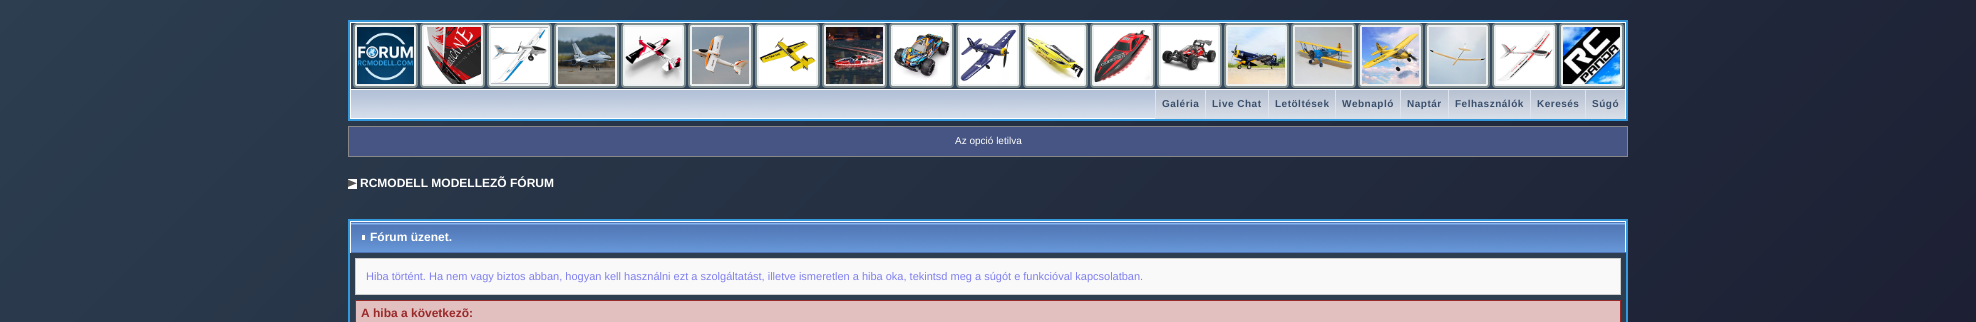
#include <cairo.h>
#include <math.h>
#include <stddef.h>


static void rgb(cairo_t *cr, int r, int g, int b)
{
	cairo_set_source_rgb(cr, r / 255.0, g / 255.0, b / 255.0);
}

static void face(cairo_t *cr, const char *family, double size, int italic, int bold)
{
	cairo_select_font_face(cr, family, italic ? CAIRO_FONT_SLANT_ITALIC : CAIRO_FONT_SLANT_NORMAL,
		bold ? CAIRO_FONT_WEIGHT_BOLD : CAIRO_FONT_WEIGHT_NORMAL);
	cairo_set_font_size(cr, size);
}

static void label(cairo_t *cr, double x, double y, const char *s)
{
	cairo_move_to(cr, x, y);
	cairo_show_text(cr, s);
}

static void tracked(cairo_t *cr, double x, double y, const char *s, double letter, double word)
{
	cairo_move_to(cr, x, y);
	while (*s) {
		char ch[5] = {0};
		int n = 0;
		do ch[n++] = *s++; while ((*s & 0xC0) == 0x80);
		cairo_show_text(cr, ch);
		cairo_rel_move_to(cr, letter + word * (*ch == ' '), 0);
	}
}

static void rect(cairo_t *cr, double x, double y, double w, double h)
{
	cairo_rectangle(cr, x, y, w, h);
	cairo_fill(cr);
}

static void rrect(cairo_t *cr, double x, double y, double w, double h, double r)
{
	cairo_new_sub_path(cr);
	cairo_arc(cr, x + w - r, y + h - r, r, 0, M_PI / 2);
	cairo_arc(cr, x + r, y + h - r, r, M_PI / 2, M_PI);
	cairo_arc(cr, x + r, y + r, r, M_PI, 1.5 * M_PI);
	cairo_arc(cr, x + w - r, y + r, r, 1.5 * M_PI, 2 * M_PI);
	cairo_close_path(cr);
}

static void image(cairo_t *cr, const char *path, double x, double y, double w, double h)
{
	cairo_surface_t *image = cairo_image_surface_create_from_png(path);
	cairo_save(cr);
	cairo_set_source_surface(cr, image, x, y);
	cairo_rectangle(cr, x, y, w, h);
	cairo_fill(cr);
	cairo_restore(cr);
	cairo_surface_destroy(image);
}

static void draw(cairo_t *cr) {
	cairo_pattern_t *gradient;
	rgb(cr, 255, 255, 255);
	cairo_paint(cr);
	gradient = cairo_pattern_create_linear(303, -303, 1673, 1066);
	cairo_pattern_add_color_stop_rgba(gradient, 0, 0.173, 0.243, 0.314, 1);
	cairo_pattern_add_color_stop_rgba(gradient, 1, 0.102, 0.102, 0.18, 1);
	cairo_set_source(cr, gradient);
	cairo_pattern_destroy(gradient);
	rect(cr, 0, 0, 1976, 322);
	cairo_rectangle(cr, 349, 21, 1278, 99);
	rgb(cr, 52, 152, 219);
	cairo_stroke(cr);
	rgb(cr, 48, 59, 74);
	rect(cr, 351, 88, 1274, 1);
	cairo_rectangle(cr, 350.5, 22.5, 1275, 67);
	rgb(cr, 255, 255, 255);
	cairo_set_line_width(cr, 1);
	cairo_stroke(cr);
	rgb(cr, 52, 73, 94);
	rect(cr, 351, 23, 1274, 65);
	rgb(cr, 236, 240, 241);
	rrect(cr, 354, 24, 63, 63, 3);
	cairo_fill_preserve(cr);
	rgb(cr, 127, 140, 141);
	cairo_set_line_width(cr, 2);
	cairo_stroke(cr);
	image(cr, "image0.png", 357, 27, 57, 57);
	rgb(cr, 236, 240, 241);
	rrect(cr, 421, 24, 63, 63, 3);
	cairo_fill_preserve(cr);
	rgb(cr, 127, 140, 141);
	cairo_stroke(cr);
	image(cr, "image1.png", 424, 27, 57, 57);
	rgb(cr, 236, 240, 241);
	rrect(cr, 488, 24, 63, 63, 3);
	cairo_fill_preserve(cr);
	rgb(cr, 127, 140, 141);
	cairo_stroke(cr);
	image(cr, "image2.png", 491, 27, 57, 57);
	rgb(cr, 236, 240, 241);
	rrect(cr, 555, 24, 63, 63, 3);
	cairo_fill_preserve(cr);
	rgb(cr, 127, 140, 141);
	cairo_stroke(cr);
	image(cr, "image3.png", 558, 27, 57, 57);
	rgb(cr, 236, 240, 241);
	rrect(cr, 622, 24, 63, 63, 3);
	cairo_fill_preserve(cr);
	rgb(cr, 127, 140, 141);
	cairo_stroke(cr);
	image(cr, "image4.png", 625, 27, 57, 57);
	rgb(cr, 236, 240, 241);
	rrect(cr, 689, 24, 63, 63, 3);
	cairo_fill_preserve(cr);
	rgb(cr, 127, 140, 141);
	cairo_stroke(cr);
	image(cr, "image5.png", 692, 27, 57, 57);
	rgb(cr, 236, 240, 241);
	rrect(cr, 756, 24, 63, 63, 3);
	cairo_fill_preserve(cr);
	rgb(cr, 127, 140, 141);
	cairo_stroke(cr);
	image(cr, "image6.png", 759, 27, 57, 57);
	rgb(cr, 236, 240, 241);
	rrect(cr, 823, 24, 63, 63, 3);
	cairo_fill_preserve(cr);
	rgb(cr, 127, 140, 141);
	cairo_stroke(cr);
	image(cr, "image7.png", 826, 27, 57, 57);
	rgb(cr, 236, 240, 241);
	rrect(cr, 890, 24, 63, 63, 3);
	cairo_fill_preserve(cr);
	rgb(cr, 127, 140, 141);
	cairo_stroke(cr);
	image(cr, "image8.png", 893, 27, 57, 57);
	rgb(cr, 236, 240, 241);
	rrect(cr, 957, 24, 63, 63, 3);
	cairo_fill_preserve(cr);
	rgb(cr, 127, 140, 141);
	cairo_stroke(cr);
	image(cr, "image9.png", 960, 27, 57, 57);
	rgb(cr, 236, 240, 241);
	rrect(cr, 1024, 24, 63, 63, 3);
	cairo_fill_preserve(cr);
	rgb(cr, 127, 140, 141);
	cairo_stroke(cr);
	image(cr, "image10.png", 1027, 27, 57, 57);
	rgb(cr, 236, 240, 241);
	rrect(cr, 1091, 24, 63, 63, 3);
	cairo_fill_preserve(cr);
	rgb(cr, 127, 140, 141);
	cairo_stroke(cr);
	image(cr, "image11.png", 1094, 27, 57, 57);
	rgb(cr, 236, 240, 241);
	rrect(cr, 1158, 24, 63, 63, 3);
	cairo_fill_preserve(cr);
	rgb(cr, 127, 140, 141);
	cairo_stroke(cr);
	image(cr, "image12.png", 1161, 27, 57, 57);
	rgb(cr, 236, 240, 241);
	rrect(cr, 1225, 24, 63, 63, 3);
	cairo_fill_preserve(cr);
	rgb(cr, 127, 140, 141);
	cairo_stroke(cr);
	image(cr, "image13.png", 1228, 27, 57, 57);
	rgb(cr, 236, 240, 241);
	rrect(cr, 1292, 24, 63, 63, 3);
	cairo_fill_preserve(cr);
	rgb(cr, 127, 140, 141);
	cairo_stroke(cr);
	image(cr, "image14.png", 1295, 27, 57, 57);
	rgb(cr, 236, 240, 241);
	rrect(cr, 1359, 24, 63, 63, 3);
	cairo_fill_preserve(cr);
	rgb(cr, 127, 140, 141);
	cairo_stroke(cr);
	image(cr, "image15.png", 1362, 27, 57, 57);
	rgb(cr, 236, 240, 241);
	rrect(cr, 1426, 24, 63, 63, 3);
	cairo_fill_preserve(cr);
	rgb(cr, 127, 140, 141);
	cairo_stroke(cr);
	image(cr, "image16.png", 1429, 27, 57, 57);
	rgb(cr, 236, 240, 241);
	rrect(cr, 1493, 24, 63, 63, 3);
	cairo_fill_preserve(cr);
	rgb(cr, 127, 140, 141);
	cairo_stroke(cr);
	image(cr, "image17.png", 1496, 27, 57, 57);
	rgb(cr, 236, 240, 241);
	rrect(cr, 1560, 24, 63, 63, 3);
	cairo_fill_preserve(cr);
	rgb(cr, 127, 140, 141);
	cairo_stroke(cr);
	image(cr, "image18.png", 1563, 27, 57, 57);
	image(cr, "image19.png", 351, 90, 804, 28);
	rgb(cr, 255, 255, 255);
	rect(cr, 1625, 90, 1, 29);
	rect(cr, 350, 118, 1276, 1);
	rect(cr, 350, 90, 1, 29);
	image(cr, "image20.png", 1156, 90, 49, 29);
	rgb(cr, 220, 227, 238);
	rect(cr, 1155, 90, 1, 29);
	face(cr, "Liberation Sans", 10, 0, 1);
	rgb(cr, 58, 79, 108);
	tracked(cr, 1162, 107, "Galéria", 0.5, 0);
	image(cr, "image21.png", 1206, 90, 62, 29);
	rgb(cr, 220, 227, 238);
	rect(cr, 1205, 90, 1, 29);
	rgb(cr, 58, 79, 108);
	tracked(cr, 1212, 107, "Live Chat", 0.5, 0);
	image(cr, "image22.png", 1269, 90, 66, 29);
	rgb(cr, 220, 227, 238);
	rect(cr, 1268, 90, 1, 29);
	rgb(cr, 58, 79, 108);
	tracked(cr, 1275, 107, "Letöltések", 0.5, 0);
	image(cr, "image23.png", 1336, 90, 64, 29);
	rgb(cr, 220, 227, 238);
	rect(cr, 1335, 90, 1, 29);
	rgb(cr, 58, 79, 108);
	tracked(cr, 1342, 107, "Webnapló", 0.5, 0);
	image(cr, "image24.png", 1401, 90, 47, 29);
	rgb(cr, 220, 227, 238);
	rect(cr, 1400, 90, 1, 29);
	rgb(cr, 58, 79, 108);
	tracked(cr, 1407, 107, "Naptár", 0.5, 0);
	image(cr, "image25.png", 1449, 90, 81, 29);
	rgb(cr, 220, 227, 238);
	rect(cr, 1448, 90, 1, 29);
	rgb(cr, 58, 79, 108);
	tracked(cr, 1455, 107, "Felhasználók", 0.5, 0);
	image(cr, "image26.png", 1531, 90, 54, 29);
	rgb(cr, 220, 227, 238);
	rect(cr, 1530, 90, 1, 29);
	rgb(cr, 58, 79, 108);
	tracked(cr, 1537, 107, "Keresés", 0.5, 0);
	image(cr, "image27.png", 1586, 90, 39, 29);
	rgb(cr, 220, 227, 238);
	rect(cr, 1585, 90, 1, 29);
	rgb(cr, 58, 79, 108);
	tracked(cr, 1592, 107, "Súgó", 0.5, 0);
	rgb(cr, 70, 85, 132);
	cairo_rectangle(cr, 348.5, 126.5, 1279, 30);
	cairo_fill_preserve(cr);
	rgb(cr, 136, 136, 136);
	cairo_set_line_width(cr, 1);
	cairo_stroke(cr);
	face(cr, "Liberation Sans", 10, 0, 0);
	rgb(cr, 255, 255, 255);
	label(cr, 955, 144, "Az opció letilva");
	image(cr, "image28.png", 348, 179, 9, 10);
	face(cr, "Liberation Sans", 12, 0, 1);
	label(cr, 360, 187, "RCMODELL MODELLEZÕ FÓRUM");
	rgb(cr, 44, 62, 80);
	rect(cr, 350, 253, 1276, 69);
	cairo_rectangle(cr, 349, 220, 1278, 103);
	rgb(cr, 52, 152, 219);
	cairo_set_line_width(cr, 2);
	cairo_stroke(cr);
	image(cr, "image29.png", 351, 222, 1274, 30);
	rgb(cr, 255, 255, 255);
	rect(cr, 350, 221, 1276, 1);
	rect(cr, 1625, 221, 1, 32);
	rgb(cr, 81, 118, 181);
	rect(cr, 350, 252, 1276, 1);
	rgb(cr, 255, 255, 255);
	rect(cr, 350, 221, 1, 32);
	rect(cr, 362, 235, 3, 5);
	label(cr, 370, 241, "Fórum üzenet.");
	rgb(cr, 249, 249, 249);
	cairo_rectangle(cr, 355.5, 258.5, 1265, 36);
	cairo_fill_preserve(cr);
	rgb(cr, 204, 204, 204);
	cairo_set_line_width(cr, 1);
	cairo_stroke(cr);
	face(cr, "Liberation Sans", 11, 0, 0);
	rgb(cr, 128, 128, 240);
	label(cr, 366, 280, "Hiba történt. Ha nem vagy biztos abban, hogyan kell használni ezt a szolgáltatást, illetve ismeretlen a hiba oka, tekintsd meg a súgót e funkcióval kapcsolatban.");
	rgb(cr, 153, 42, 42);
	rect(cr, 1620, 300, 1, 22);
	rect(cr, 355, 300, 1, 22);
	rgb(cr, 227, 192, 192);
	rect(cr, 356, 301, 1264, 21);
	rgb(cr, 153, 42, 42);
	rect(cr, 356, 300, 1264, 1);
	face(cr, "Liberation Sans", 12, 0, 1);
	label(cr, 361, 317, "A hiba a következõ:");
}

int main(void) {
	cairo_surface_t *surface = cairo_image_surface_create(CAIRO_FORMAT_RGB24, 1976, 322);
	cairo_t *cr = cairo_create(surface);
	cairo_font_options_t *options = cairo_font_options_create();
	cairo_font_options_set_hint_metrics(options, CAIRO_HINT_METRICS_OFF);
	cairo_font_options_set_hint_style(options, CAIRO_HINT_STYLE_NONE);
	cairo_set_font_options(cr, options);
	cairo_set_miter_limit(cr, 4);
	draw(cr);
	cairo_surface_write_to_png(surface, "render.png");
	cairo_font_options_destroy(options);
	cairo_destroy(cr);
	cairo_surface_destroy(surface);
	return 0;
}
